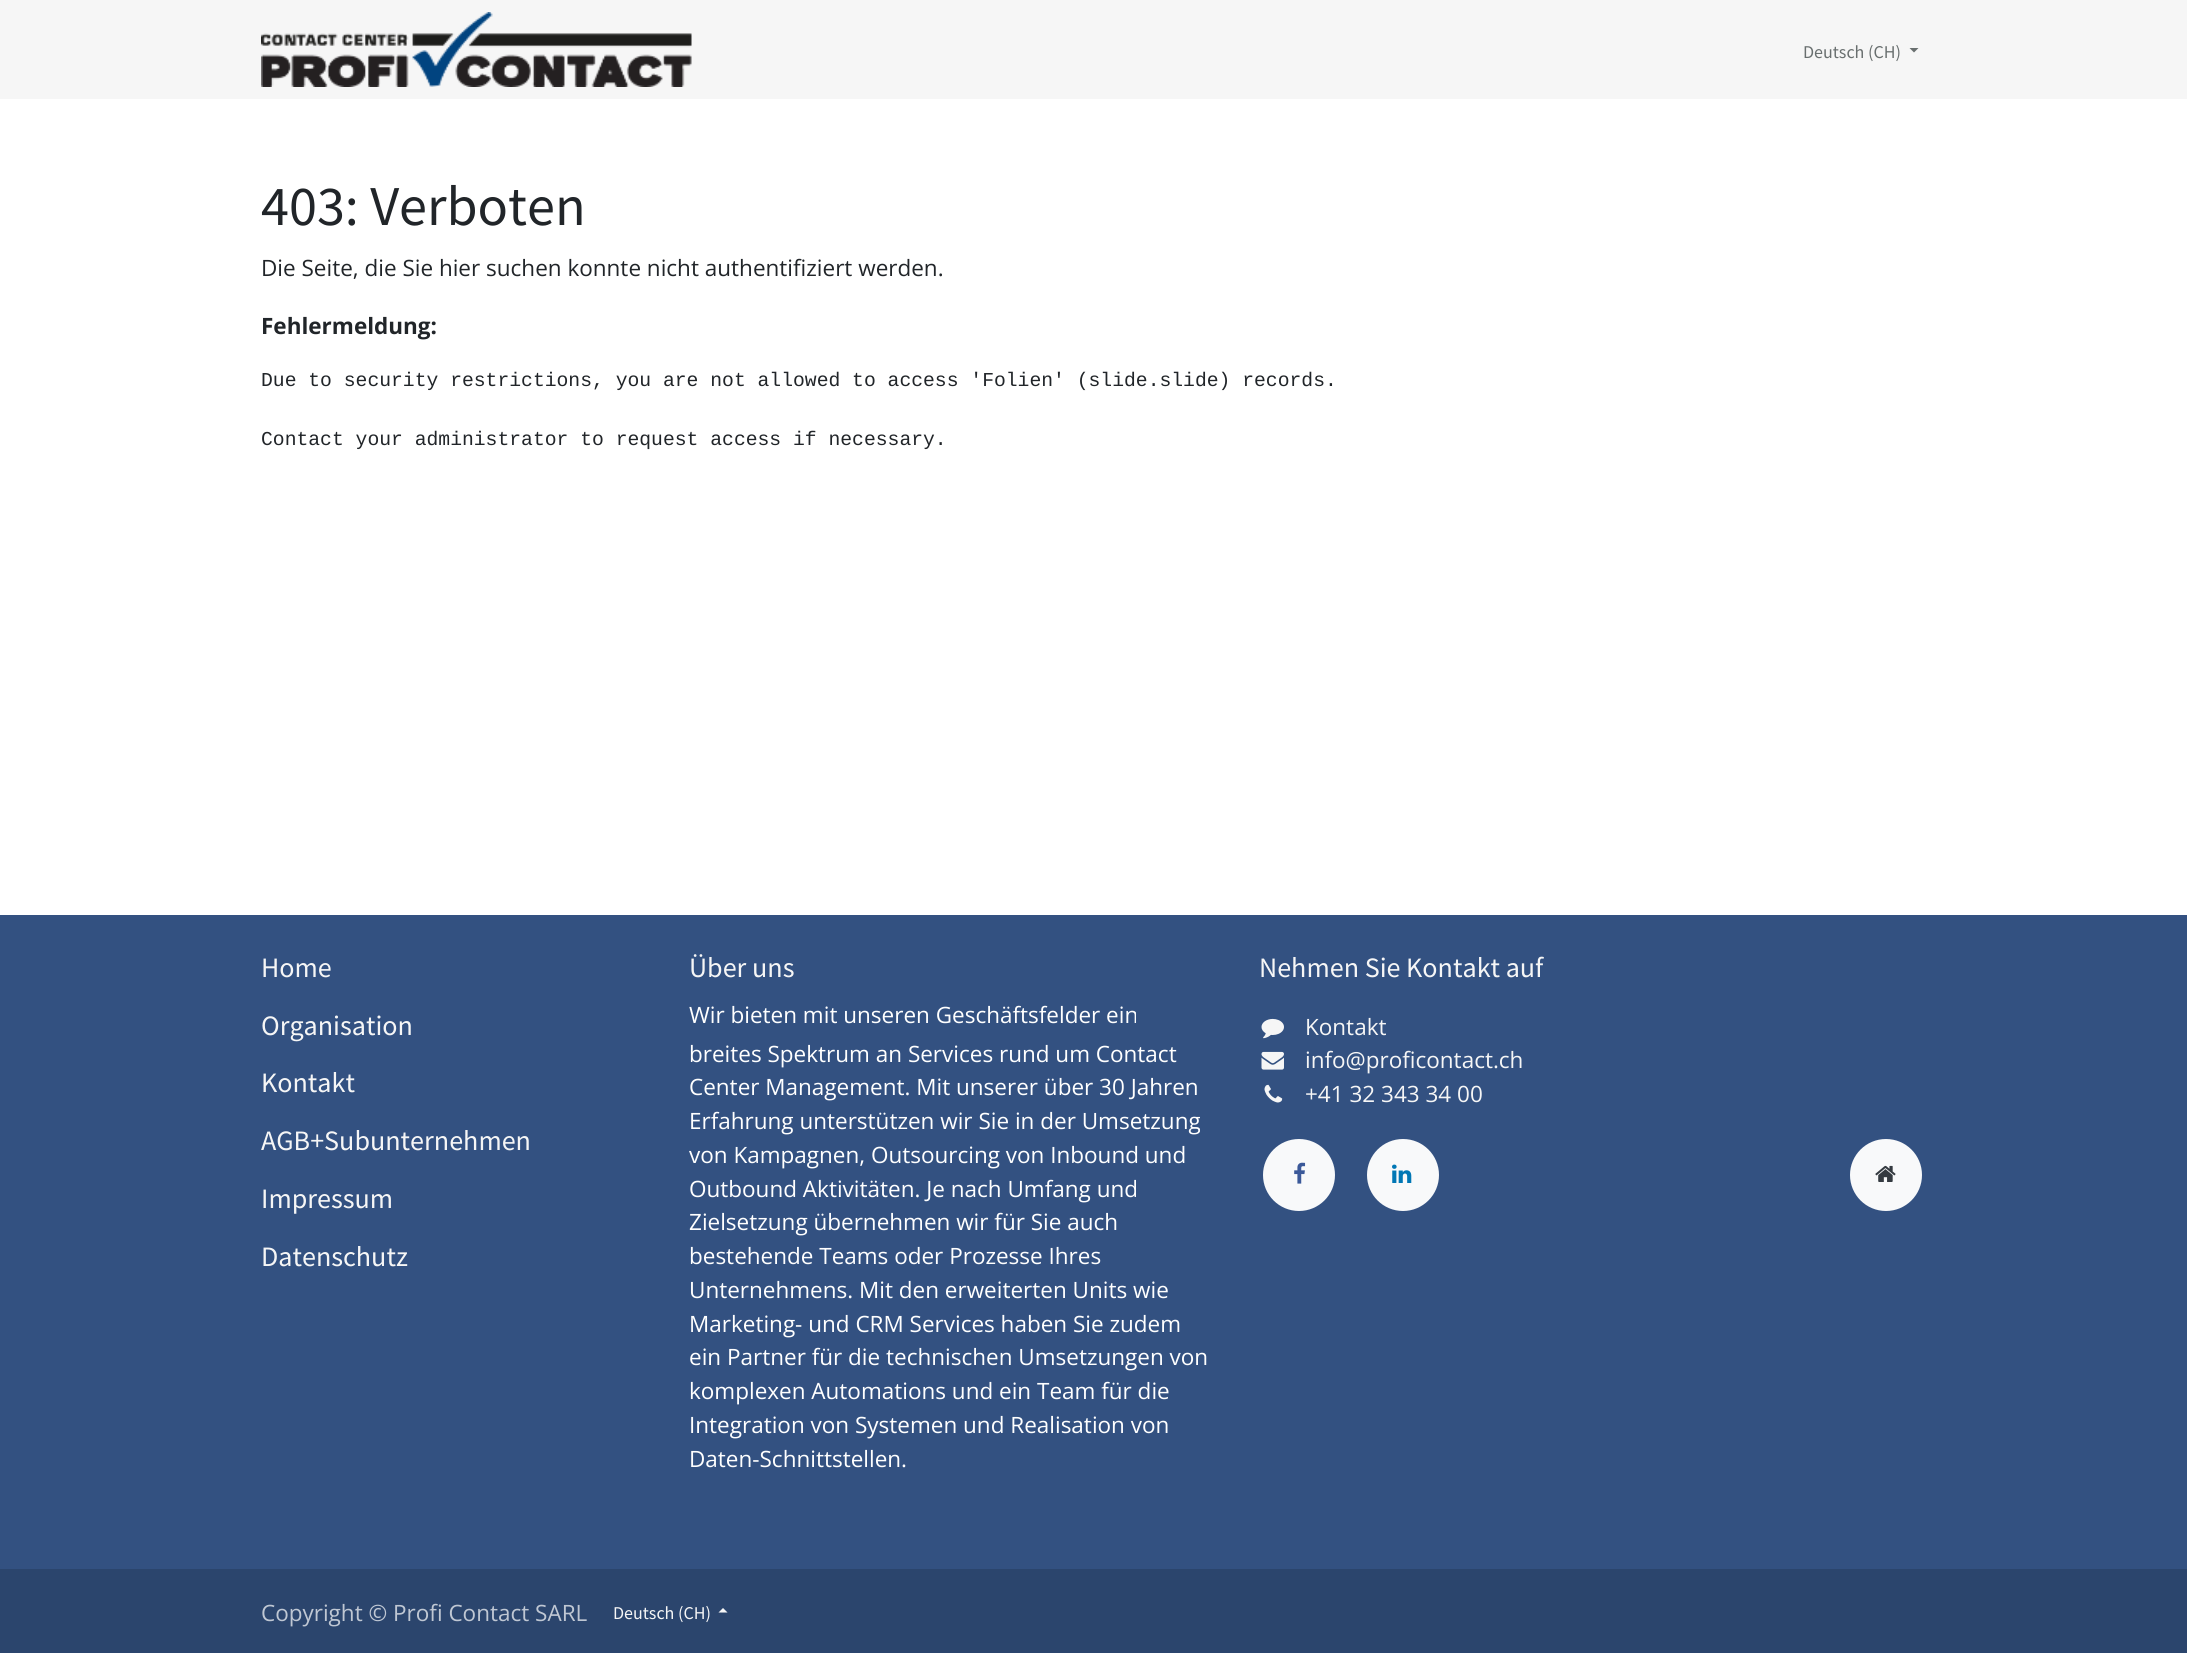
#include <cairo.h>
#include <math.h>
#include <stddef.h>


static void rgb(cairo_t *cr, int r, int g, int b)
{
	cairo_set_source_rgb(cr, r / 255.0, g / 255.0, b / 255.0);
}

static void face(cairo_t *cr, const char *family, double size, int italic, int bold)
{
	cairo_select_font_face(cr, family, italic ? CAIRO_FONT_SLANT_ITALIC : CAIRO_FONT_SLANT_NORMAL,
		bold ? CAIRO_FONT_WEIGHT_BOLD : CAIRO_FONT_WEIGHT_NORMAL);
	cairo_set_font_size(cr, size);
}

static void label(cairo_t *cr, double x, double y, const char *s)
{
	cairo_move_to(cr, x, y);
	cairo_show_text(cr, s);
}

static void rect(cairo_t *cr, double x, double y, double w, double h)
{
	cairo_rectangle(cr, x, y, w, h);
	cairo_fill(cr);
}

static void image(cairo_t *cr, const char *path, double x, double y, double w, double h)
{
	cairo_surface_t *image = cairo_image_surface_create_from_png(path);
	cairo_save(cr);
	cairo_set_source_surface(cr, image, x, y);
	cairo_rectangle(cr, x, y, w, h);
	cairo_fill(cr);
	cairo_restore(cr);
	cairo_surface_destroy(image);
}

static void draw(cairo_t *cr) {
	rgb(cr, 255, 255, 255);
	cairo_paint(cr);
	rgb(cr, 246, 246, 246);
	rect(cr, 0, 0, 2187, 99);
	image(cr, "image0.png", 261, 12, 431, 75);
	face(cr, "Source Sans Pro", 18, 0, 0);
	rgb(cr, 105, 111, 111);
	label(cr, 1803, 58, "Deutsch (CH)");
	cairo_new_path(cr);
	cairo_move_to(cr, 1909.5, 48);
	cairo_line_to(cr, 1918.5, 48);
	cairo_line_to(cr, 1914, 52.5);
	cairo_close_path(cr);
	cairo_fill(cr);
	face(cr, "Source Sans Pro", 56.25, 0, 0);
	rgb(cr, 33, 37, 41);
	label(cr, 261, 225, "403: Verboten");
	face(cr, "Open Sans", 22.5, 0, 0);
	label(cr, 261, 276, "Die Seite, die Sie hier suchen konnte nicht authentifiziert werden.");
	face(cr, "Open Sans", 22.5, 0, 1);
	label(cr, 261, 334, "Fehlermeldung:");
	face(cr, "Liberation Mono", 19.7, 0, 0);
	label(cr, 261, 386, "Due to security restrictions, you are not allowed to access 'Folien' (slide.slide) records.");
	label(cr, 261, 445, "Contact your administrator to request access if necessary.");
	rgb(cr, 51, 81, 129);
	rect(cr, 0, 915, 2187, 654);
	face(cr, "Source Sans Pro", 28.1, 0, 0);
	rgb(cr, 246, 246, 246);
	label(cr, 261, 977, "Home");
	label(cr, 261, 1035, "Organisation");
	label(cr, 261, 1092, "Kontakt");
	label(cr, 261, 1150, "AGB+Subunternehmen");
	label(cr, 261, 1208, "Impressum");
	label(cr, 261, 1266, "Datenschutz");
	label(cr, 689, 977, "Über uns");
	face(cr, "Open Sans", 22.5, 0, 0);
	rgb(cr, 255, 255, 255);
	label(cr, 689, 1023, "Wir bieten mit unseren Geschäftsfelder ein");
	label(cr, 689, 1062, "breites Spektrum an Services rund um Contact");
	label(cr, 689, 1095, "Center Management. Mit unserer über 30 Jahren");
	label(cr, 689, 1129, "Erfahrung unterstützen wir Sie in der Umsetzung");
	label(cr, 689, 1163, "von Kampagnen, Outsourcing von Inbound und");
	label(cr, 689, 1197, "Outbound Aktivitäten. Je nach Umfang und");
	label(cr, 689, 1230, "Zielsetzung übernehmen wir für Sie auch");
	label(cr, 689, 1264, "bestehende Teams oder Prozesse Ihres");
	label(cr, 689, 1298, "Unternehmens. Mit den erweiterten Units wie");
	label(cr, 689, 1332, "Marketing- und CRM Services haben Sie zudem");
	label(cr, 689, 1365, "ein Partner für die technischen Umsetzungen von");
	label(cr, 689, 1399, "komplexen Automations und ein Team für die");
	label(cr, 689, 1433, "Integration von Systemen und Realisation von");
	label(cr, 689, 1467, "Daten-Schnittstellen.");
	face(cr, "Source Sans Pro", 28.1, 0, 0);
	rgb(cr, 246, 246, 246);
	label(cr, 1259, 977, "Nehmen Sie Kontakt auf");
	image(cr, "image1.png", 1261, 1018, 23, 21);
	face(cr, "Open Sans", 22.5, 0, 0);
	label(cr, 1305, 1035, "Kontakt");
	image(cr, "image2.png", 1261, 1051, 23, 19);
	label(cr, 1305, 1068, "info@proficontact.ch");
	image(cr, "image3.png", 1264, 1084, 19, 19);
	label(cr, 1305, 1102, "+41 32 343 34 00");
	rgb(cr, 248, 249, 250);
	cairo_new_path(cr);
	cairo_arc(cr, 1299, 1175, 36, 0, 2 * M_PI);
	cairo_fill(cr);
	image(cr, "image4.png", 1294, 1162, 12, 22);
	cairo_arc(cr, 1403, 1175, 36, 0, 2 * M_PI);
	cairo_fill(cr);
	image(cr, "image5.png", 1392, 1164, 20, 19);
	cairo_arc(cr, 1886, 1175, 36, 0, 2 * M_PI);
	cairo_fill(cr);
	image(cr, "image6.png", 1875, 1165, 21, 17);
	rgb(cr, 43, 69, 109);
	rect(cr, 0, 1569, 2187, 84);
	rgb(cr, 191, 199, 211);
	label(cr, 261, 1621, "Copyright © Profi Contact SARL");
	face(cr, "Source Sans Pro", 18, 0, 0);
	rgb(cr, 246, 246, 246);
	label(cr, 613, 1619, "Deutsch (CH)");
	cairo_new_path(cr);
	cairo_move_to(cr, 727.5, 1612.5);
	cairo_line_to(cr, 718.5, 1612.5);
	cairo_line_to(cr, 723, 1608);
	cairo_close_path(cr);
	cairo_fill(cr);
}

int main(void) {
	cairo_surface_t *surface = cairo_image_surface_create(CAIRO_FORMAT_RGB24, 2187, 1653);
	cairo_t *cr = cairo_create(surface);
	cairo_font_options_t *options = cairo_font_options_create();
	cairo_font_options_set_hint_metrics(options, CAIRO_HINT_METRICS_OFF);
	cairo_font_options_set_hint_style(options, CAIRO_HINT_STYLE_NONE);
	cairo_set_font_options(cr, options);
	cairo_set_miter_limit(cr, 4);
	draw(cr);
	cairo_surface_write_to_png(surface, "render.png");
	cairo_font_options_destroy(options);
	cairo_destroy(cr);
	cairo_surface_destroy(surface);
	return 0;
}
